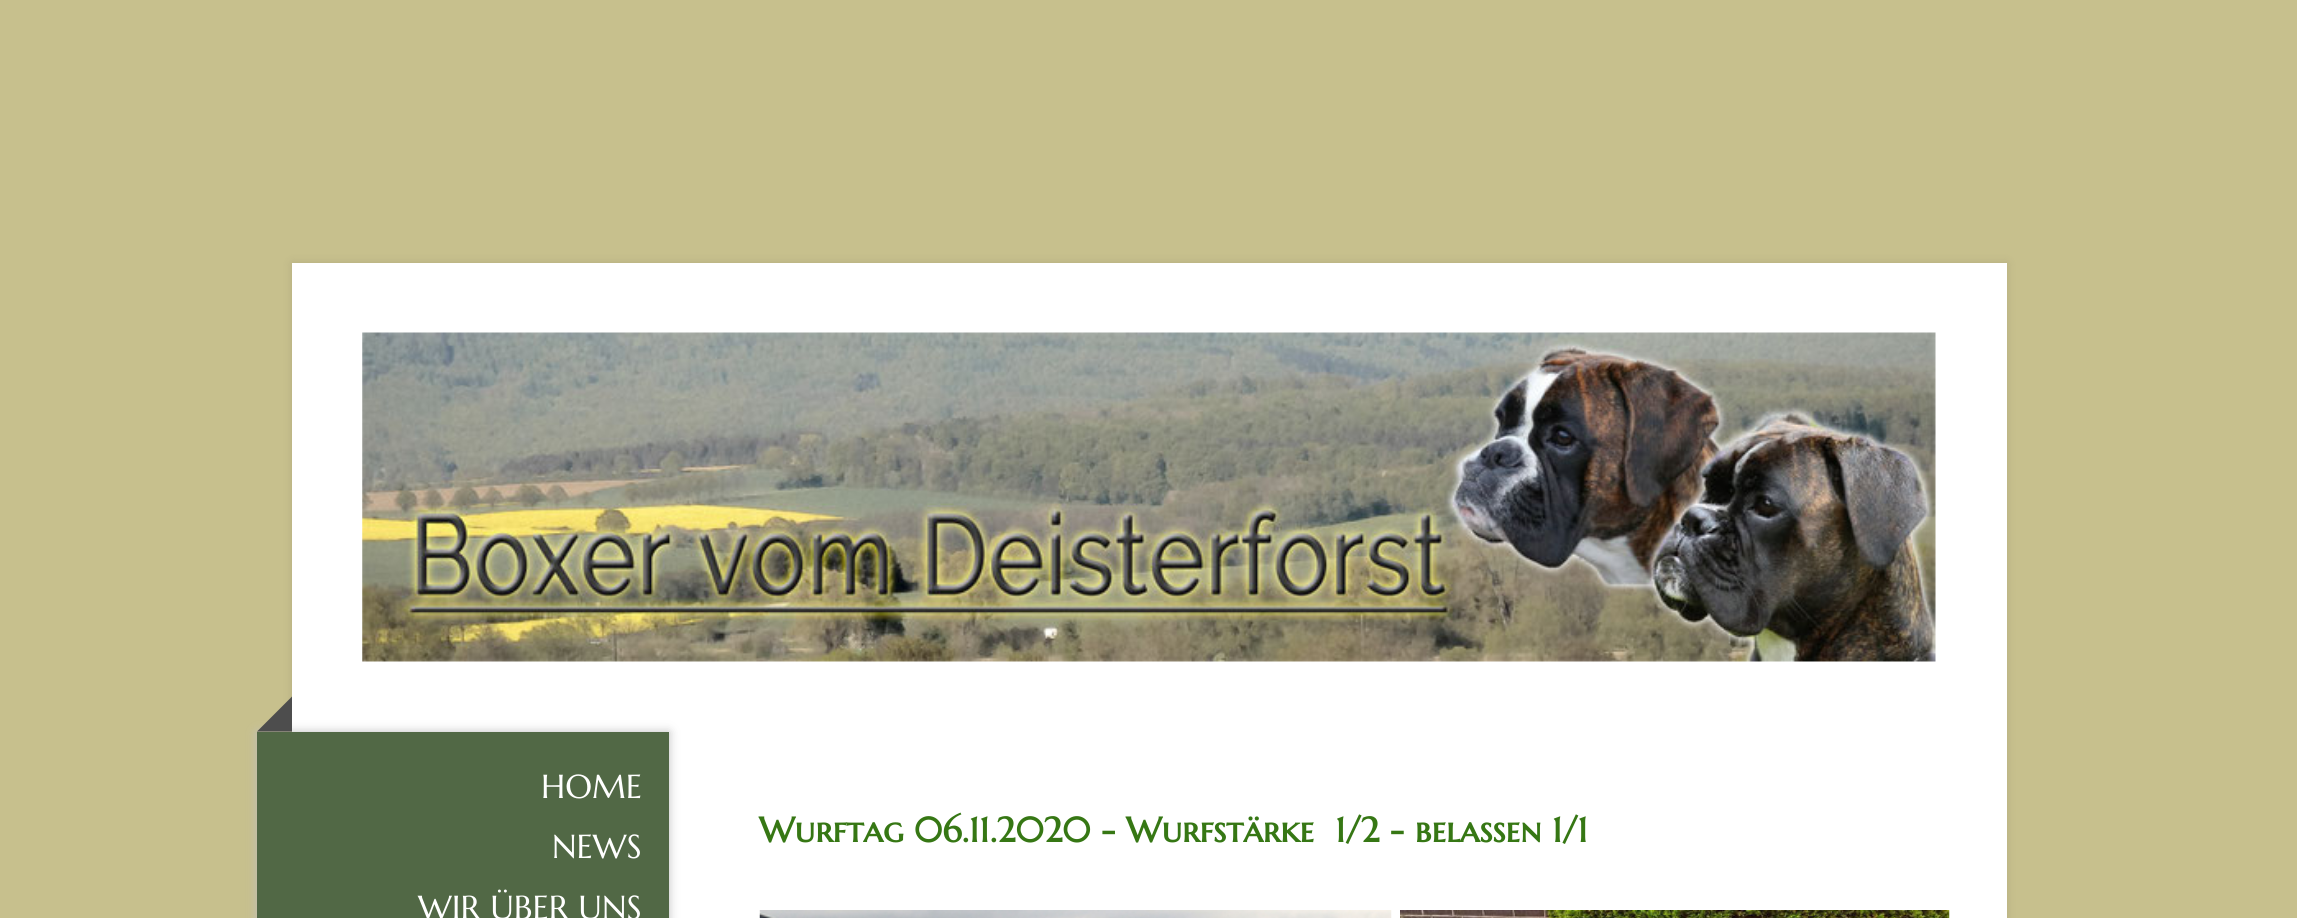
#include <cairo.h>
#include <math.h>
#include <stddef.h>


static void rgb(cairo_t *cr, int r, int g, int b)
{
	cairo_set_source_rgb(cr, r / 255.0, g / 255.0, b / 255.0);
}

static void face(cairo_t *cr, const char *family, double size, int italic, int bold)
{
	cairo_select_font_face(cr, family, italic ? CAIRO_FONT_SLANT_ITALIC : CAIRO_FONT_SLANT_NORMAL,
		bold ? CAIRO_FONT_WEIGHT_BOLD : CAIRO_FONT_WEIGHT_NORMAL);
	cairo_set_font_size(cr, size);
}

static void label(cairo_t *cr, double x, double y, const char *s)
{
	cairo_move_to(cr, x, y);
	cairo_show_text(cr, s);
}

static void rect(cairo_t *cr, double x, double y, double w, double h)
{
	cairo_rectangle(cr, x, y, w, h);
	cairo_fill(cr);
}

static void rrect(cairo_t *cr, double x, double y, double w, double h, double r)
{
	cairo_new_sub_path(cr);
	cairo_arc(cr, x + w - r, y + h - r, r, 0, M_PI / 2);
	cairo_arc(cr, x + r, y + h - r, r, M_PI / 2, M_PI);
	cairo_arc(cr, x + r, y + r, r, M_PI, 1.5 * M_PI);
	cairo_arc(cr, x + w - r, y + r, r, 1.5 * M_PI, 2 * M_PI);
	cairo_close_path(cr);
}

static void soft_shadow(cairo_t *cr, double x, double y, double w, double h, double r, double blur, double alpha)
{
	cairo_push_group_with_content(cr, CAIRO_CONTENT_ALPHA);
	cairo_set_operator(cr, CAIRO_OPERATOR_SOURCE);
	for (int i = 15; i >= -15 && fmin(w, h) + blur * i / 3 > 0; i -= 2) {
		double e = blur * i / 6;
		cairo_set_source_rgba(cr, 0, 0, 0, alpha * erfc((i - 1) / 8.5) / 2);
		rrect(cr, x - e, y - e, w + 2 * e, h + 2 * e, fmax(0, fmin(r + e + blur * .6, fmin(w, h) / 2 + e)));
		cairo_fill(cr);
	}
	cairo_pattern_t *soft = cairo_pop_group(cr);
	cairo_mask(cr, soft);
	cairo_pattern_destroy(soft);
}

static void image(cairo_t *cr, const char *path, double x, double y, double w, double h)
{
	cairo_surface_t *image = cairo_image_surface_create_from_png(path);
	cairo_save(cr);
	cairo_set_source_surface(cr, image, x, y);
	cairo_rectangle(cr, x, y, w, h);
	cairo_fill(cr);
	cairo_restore(cr);
	cairo_surface_destroy(image);
}

static void draw(cairo_t *cr) {
	rgb(cr, 199, 192, 141);
	cairo_paint(cr);
	rgb(cr, 0, 0, 0);
	soft_shadow(cr, 292, 263, 1715, 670, 0, 5, 0.1);
	rgb(cr, 255, 255, 255);
	rect(cr, 292, 263, 1715, 655);
	image(cr, "image0.png", 362, 332, 1574, 330);
	rgb(cr, 191, 191, 191);
	soft_shadow(cr, 257, 732, 412, 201, 0, 5, 1);
	rgb(cr, 81, 104, 69);
	rect(cr, 257, 732, 412, 186);
	rgb(cr, 77, 77, 77);
	cairo_new_path(cr);
	cairo_move_to(cr, 292, 731.5);
	cairo_line_to(cr, 257, 731.5);
	cairo_line_to(cr, 292, 696.5);
	cairo_close_path(cr);
	cairo_fill(cr);
	face(cr, "Marcellus SC", 33.25, 0, 0);
	rgb(cr, 255, 255, 255);
	label(cr, 541, 798, "HOME");
	label(cr, 552, 858, "NEWS");
	label(cr, 418, 919, "WIR ÜBER UNS");
	face(cr, "Marcellus SC", 35, 0, 1);
	rgb(cr, 54, 119, 20);
	label(cr, 759, 842, "Wurftag 06.11.2020 - Wurfstärke  1/2 - belassen 1/1");
	image(cr, "image1.png", 759, 910, 633, 8);
	image(cr, "image2.png", 1400, 910, 550, 8);
}

int main(void) {
	cairo_surface_t *surface = cairo_image_surface_create(CAIRO_FORMAT_RGB24, 2297, 918);
	cairo_t *cr = cairo_create(surface);
	cairo_font_options_t *options = cairo_font_options_create();
	cairo_font_options_set_hint_metrics(options, CAIRO_HINT_METRICS_OFF);
	cairo_font_options_set_hint_style(options, CAIRO_HINT_STYLE_NONE);
	cairo_set_font_options(cr, options);
	cairo_set_miter_limit(cr, 4);
	draw(cr);
	cairo_surface_write_to_png(surface, "render.png");
	cairo_font_options_destroy(options);
	cairo_destroy(cr);
	cairo_surface_destroy(surface);
	return 0;
}
